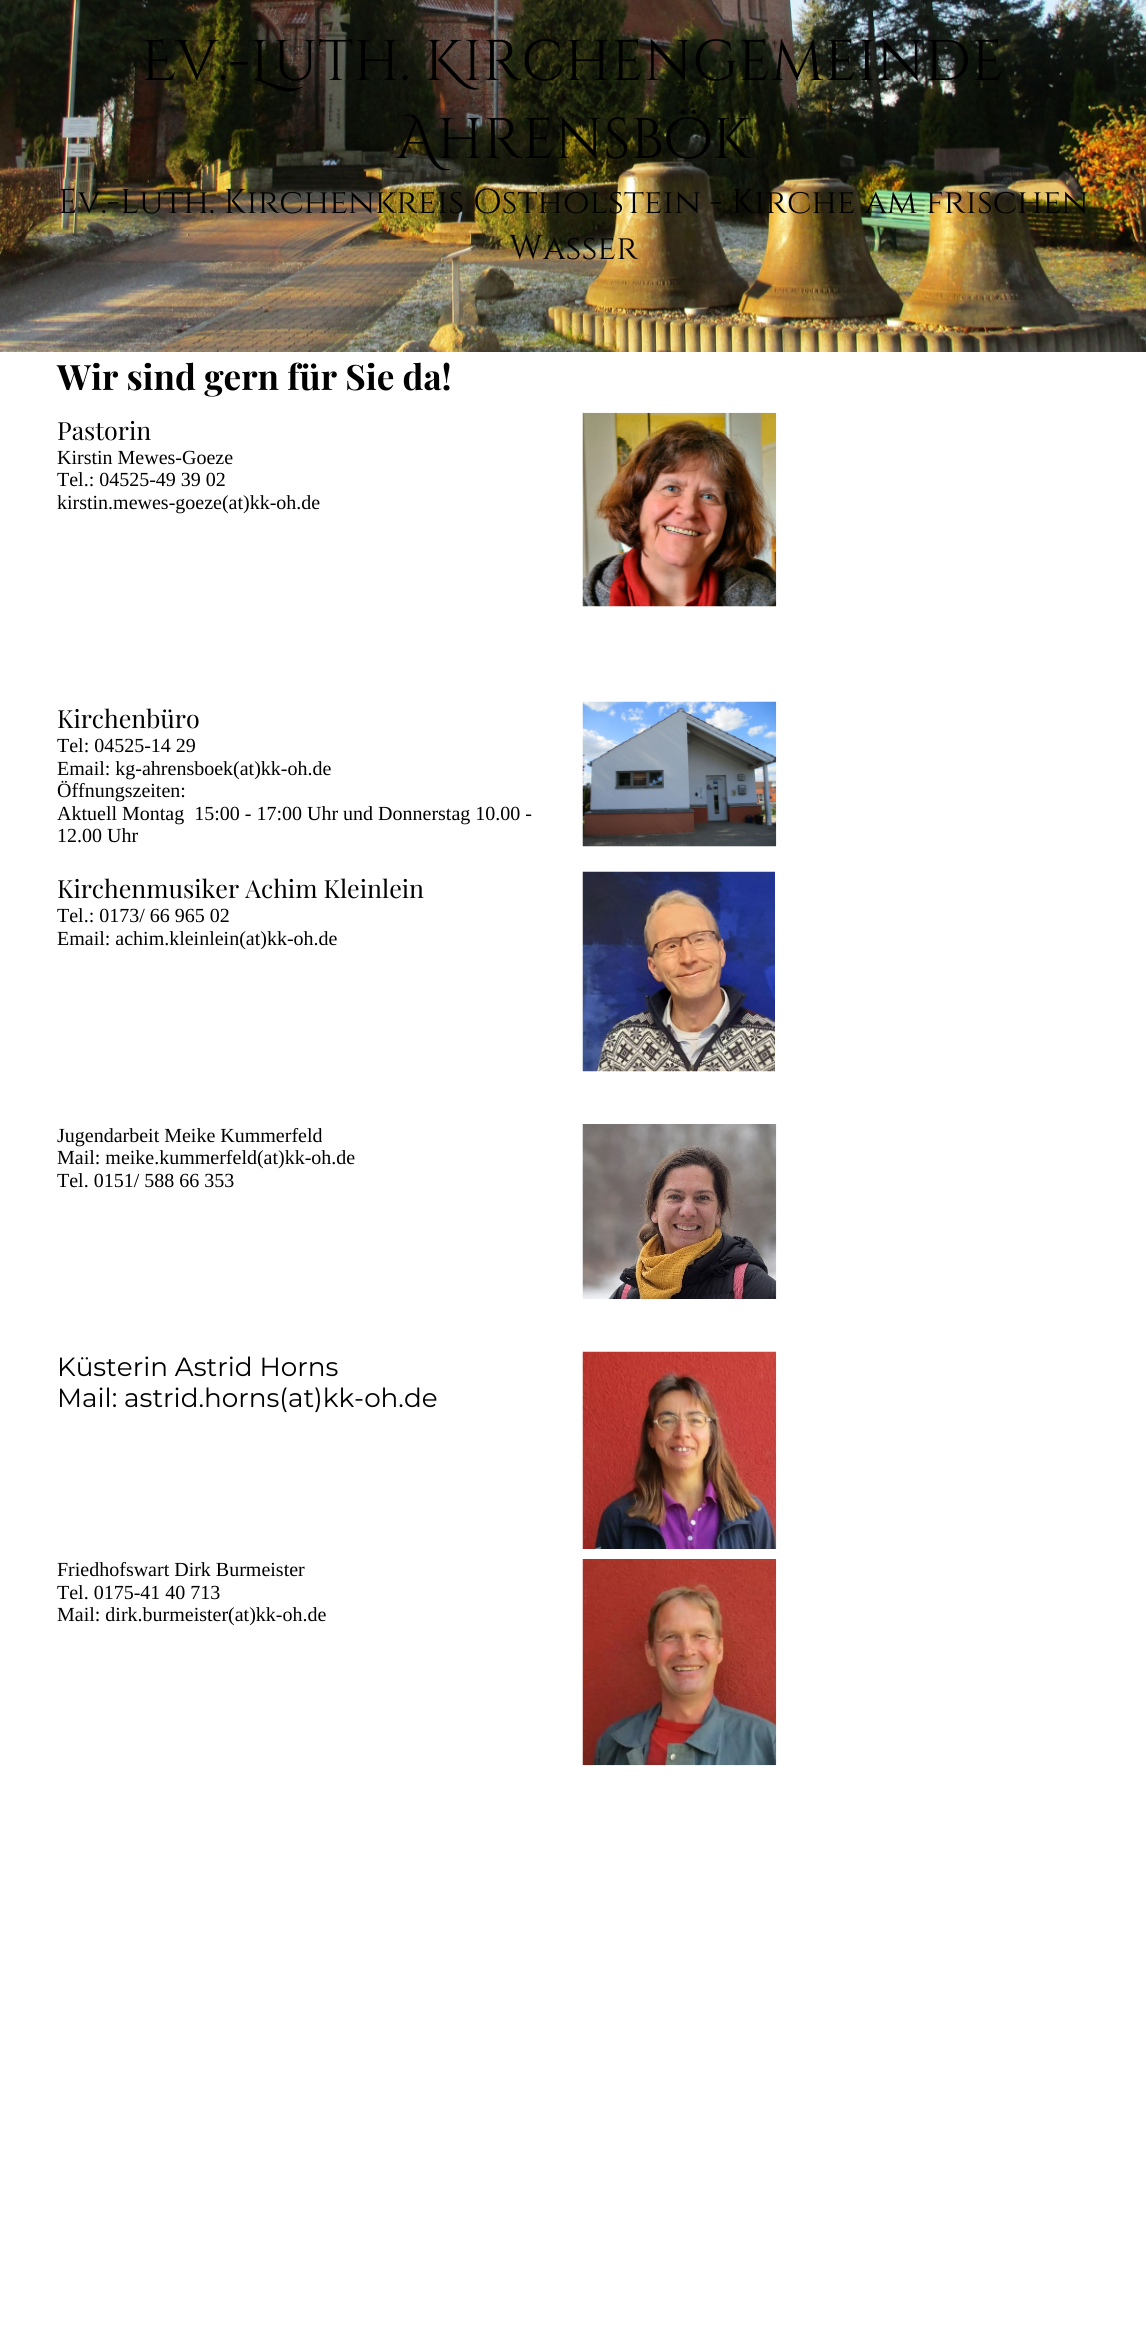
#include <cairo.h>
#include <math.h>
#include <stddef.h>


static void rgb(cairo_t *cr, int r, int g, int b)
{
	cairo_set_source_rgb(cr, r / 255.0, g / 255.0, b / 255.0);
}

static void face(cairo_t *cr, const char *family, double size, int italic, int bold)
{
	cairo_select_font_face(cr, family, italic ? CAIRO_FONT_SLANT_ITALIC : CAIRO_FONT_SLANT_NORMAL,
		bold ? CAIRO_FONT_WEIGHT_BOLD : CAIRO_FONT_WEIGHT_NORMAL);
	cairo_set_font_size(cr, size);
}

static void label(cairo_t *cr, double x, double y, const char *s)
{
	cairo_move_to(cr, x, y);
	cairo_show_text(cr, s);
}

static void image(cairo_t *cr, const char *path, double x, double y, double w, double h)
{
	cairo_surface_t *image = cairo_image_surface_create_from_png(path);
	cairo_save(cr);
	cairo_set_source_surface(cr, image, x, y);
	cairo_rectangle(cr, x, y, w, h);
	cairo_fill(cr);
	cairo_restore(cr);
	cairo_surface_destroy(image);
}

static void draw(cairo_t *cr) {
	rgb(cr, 255, 255, 255);
	cairo_paint(cr);
	image(cr, "image0.png", 0, 0, 1146, 352);
	face(cr, "Cinzel Decorative", 57.25, 0, 0);
	rgb(cr, 0, 0, 0);
	label(cr, 141, 80, "Ev.-Luth. Kirchengemeinde");
	label(cr, 396, 158, "Ahrensbök");
	face(cr, "Cinzel", 34.4, 0, 0);
	label(cr, 58, 213, "Ev.-Luth. Kirchenkreis Ostholstein - Kirche am frischen");
	label(cr, 509, 259, "Wasser");
	face(cr, "Playfair Display", 35, 0, 1);
	label(cr, 57, 390, "Wir sind gern für Sie da!");
	face(cr, "Playfair Display", 25, 0, 0);
	label(cr, 57, 440, "Pastorin");
	face(cr, "Liberation Serif", 20, 0, 0);
	label(cr, 57, 464, "Kirstin Mewes-Goeze");
	label(cr, 57, 486, "Tel.: 04525-49 39 02");
	label(cr, 57, 509, "kirstin.mewes-goeze(at)kk-oh.de");
	image(cr, "image1.png", 582, 412, 195, 195);
	face(cr, "Playfair Display", 25, 0, 0);
	label(cr, 57, 728, "Kirchenbüro");
	face(cr, "Liberation Serif", 20, 0, 0);
	label(cr, 57, 752, "Tel: 04525-14 29");
	label(cr, 57, 775, "Email: kg-ahrensboek(at)kk-oh.de");
	label(cr, 57, 797, "Öffnungszeiten:");
	label(cr, 57, 820, "Aktuell Montag  15:00 - 17:00 Uhr und Donnerstag 10.00 -");
	label(cr, 57, 842, "12.00 Uhr");
	image(cr, "image2.png", 582, 701, 195, 146);
	face(cr, "Playfair Display", 25, 0, 0);
	label(cr, 57, 898, "Kirchenmusiker Achim Kleinlein");
	face(cr, "Liberation Serif", 20, 0, 0);
	label(cr, 57, 922, "Tel.: 0173/ 66 965 02");
	label(cr, 57, 945, "Email: achim.kleinlein(at)kk-oh.de");
	image(cr, "image3.png", 582, 871, 193, 201);
	label(cr, 57, 1142, "Jugendarbeit Meike Kummerfeld");
	label(cr, 57, 1164, "Mail: meike.kummerfeld(at)kk-oh.de");
	label(cr, 57, 1187, "Tel. 0151/ 588 66 353");
	image(cr, "image4.png", 582, 1124, 195, 175);
	face(cr, "Montserrat", 26.25, 0, 0);
	label(cr, 57, 1376, "Küsterin Astrid Horns");
	label(cr, 57, 1407, "Mail: astrid.horns(at)kk-oh.de");
	image(cr, "image5.png", 582, 1351, 195, 198);
	face(cr, "Liberation Serif", 20, 0, 0);
	label(cr, 57, 1576, "Friedhofswart Dirk Burmeister");
	label(cr, 57, 1599, "Tel. 0175-41 40 713");
	label(cr, 57, 1621, "Mail: dirk.burmeister(at)kk-oh.de");
	image(cr, "image6.png", 582, 1559, 195, 207);
}

int main(void) {
	cairo_surface_t *surface = cairo_image_surface_create(CAIRO_FORMAT_RGB24, 1146, 2326);
	cairo_t *cr = cairo_create(surface);
	cairo_font_options_t *options = cairo_font_options_create();
	cairo_font_options_set_hint_metrics(options, CAIRO_HINT_METRICS_OFF);
	cairo_font_options_set_hint_style(options, CAIRO_HINT_STYLE_NONE);
	cairo_set_font_options(cr, options);
	cairo_set_miter_limit(cr, 4);
	draw(cr);
	cairo_surface_write_to_png(surface, "render.png");
	cairo_font_options_destroy(options);
	cairo_destroy(cr);
	cairo_surface_destroy(surface);
	return 0;
}
